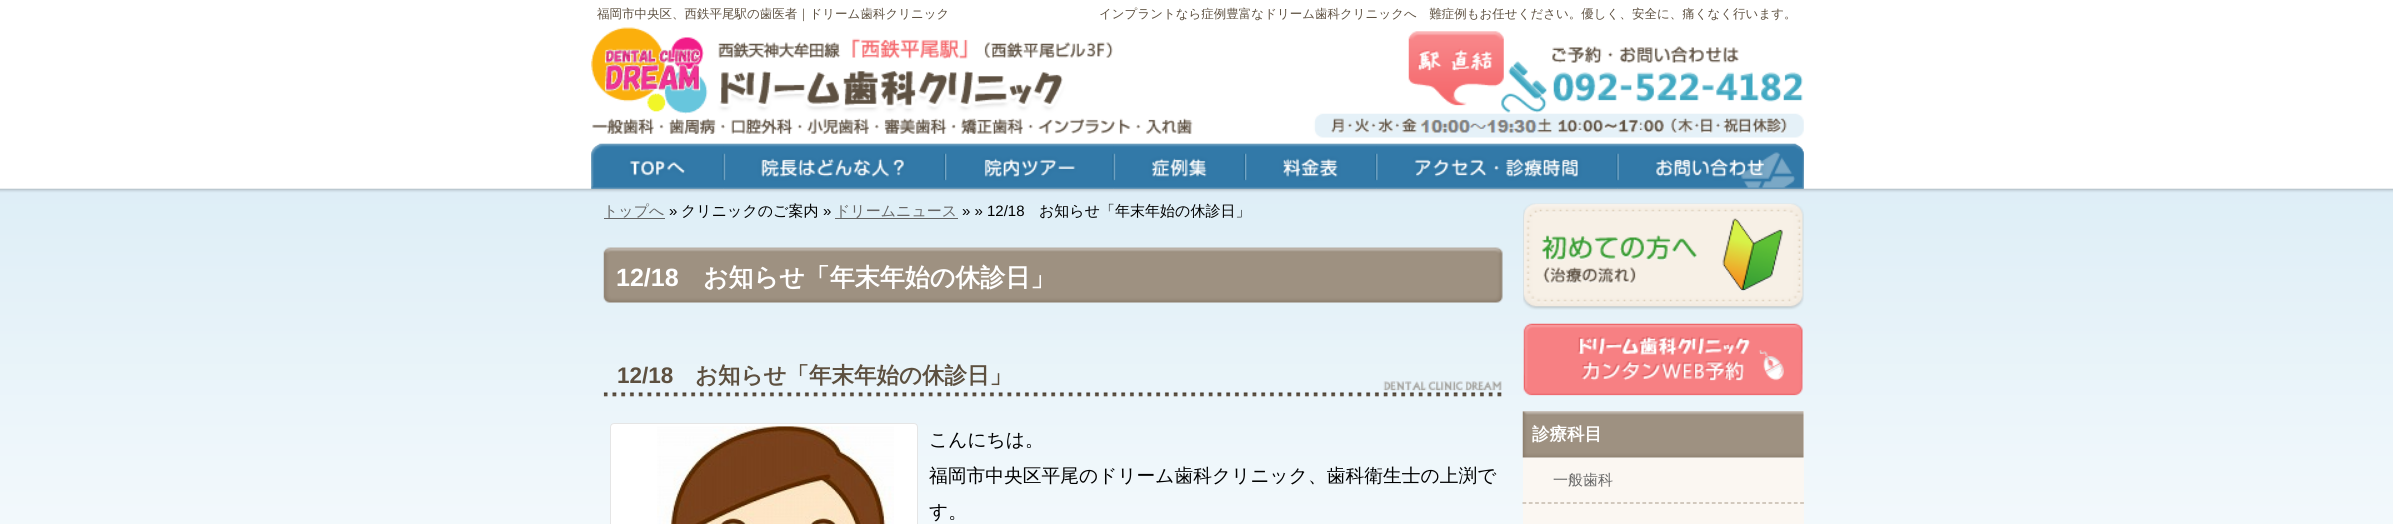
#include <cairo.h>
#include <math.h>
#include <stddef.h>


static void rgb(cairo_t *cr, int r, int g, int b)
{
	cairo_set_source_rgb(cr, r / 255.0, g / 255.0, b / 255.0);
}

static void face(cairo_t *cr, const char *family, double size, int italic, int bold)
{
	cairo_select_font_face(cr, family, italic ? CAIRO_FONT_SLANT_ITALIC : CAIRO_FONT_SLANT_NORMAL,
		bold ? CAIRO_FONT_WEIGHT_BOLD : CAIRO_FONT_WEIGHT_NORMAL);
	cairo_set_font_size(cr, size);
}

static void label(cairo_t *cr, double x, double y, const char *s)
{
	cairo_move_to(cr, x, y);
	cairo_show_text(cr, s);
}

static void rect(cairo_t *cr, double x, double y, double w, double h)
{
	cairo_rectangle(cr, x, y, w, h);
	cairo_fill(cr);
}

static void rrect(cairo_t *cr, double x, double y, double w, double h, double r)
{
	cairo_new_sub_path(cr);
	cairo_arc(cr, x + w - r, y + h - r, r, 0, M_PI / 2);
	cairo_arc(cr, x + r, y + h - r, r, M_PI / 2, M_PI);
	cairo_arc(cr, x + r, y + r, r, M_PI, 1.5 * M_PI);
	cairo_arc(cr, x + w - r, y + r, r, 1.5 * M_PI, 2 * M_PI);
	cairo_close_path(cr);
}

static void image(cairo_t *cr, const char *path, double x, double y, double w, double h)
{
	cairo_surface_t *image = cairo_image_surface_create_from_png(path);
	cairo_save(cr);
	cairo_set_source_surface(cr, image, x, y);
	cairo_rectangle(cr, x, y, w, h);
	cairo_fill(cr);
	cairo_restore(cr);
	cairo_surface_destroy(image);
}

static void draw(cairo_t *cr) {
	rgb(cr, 255, 255, 255);
	cairo_paint(cr);
	image(cr, "image0.png", 0, 188, 2393, 336);
	image(cr, "image1.png", 591, 27, 1213, 111);
	face(cr, "WenQuanYi Zen Hei Medium", 12.5, 0, 0);
	rgb(cr, 93, 80, 64);
	label(cr, 597, 18, "福岡市中央区、西鉄平尾駅の歯医者｜ドリーム歯科クリニック");
	label(cr, 1099, 18, "インプラントなら症例豊富なドリーム歯科クリニックへ　難症例もお任せください。優しく、安全に、痛くなく行います。");
	image(cr, "image2.png", 591, 59, 1, 11);
	image(cr, "image11.png", 603, 247, 900, 56);
	face(cr, "Liberation Sans", 25, 0, 1);
	rgb(cr, 255, 255, 255);
	label(cr, 616, 286, "12/18");
	face(cr, "WenQuanYi Zen Hei", 25, 0, 1);
	label(cr, 703, 286, "お知らせ「年末年始の休診日」");
	image(cr, "image3.png", 591, 143, 1213, 46);
	image(cr, "image4.png", 591, 143, 133, 46);
	image(cr, "image5.png", 723, 143, 222, 46);
	image(cr, "image6.png", 945, 143, 169, 46);
	image(cr, "image7.png", 1113, 143, 132, 46);
	image(cr, "image8.png", 1245, 143, 132, 46);
	image(cr, "image9.png", 1376, 143, 242, 46);
	image(cr, "image10.png", 1617, 143, 187, 46);
	face(cr, "WenQuanYi Zen Hei Medium", 15, 0, 0);
	rgb(cr, 102, 102, 102);
	label(cr, 603, 216, "トップへ");
	rect(cr, 604, 218, 61, 1);
	face(cr, "Liberation Sans", 15, 0, 0);
	rgb(cr, 0, 0, 0);
	label(cr, 669, 216, "»");
	face(cr, "WenQuanYi Zen Hei Medium", 15, 0, 0);
	label(cr, 681, 216, "クリニックのご案内");
	face(cr, "Liberation Sans", 15, 0, 0);
	label(cr, 823, 216, "»");
	rgb(cr, 102, 102, 102);
	rect(cr, 835, 218, 123, 1);
	face(cr, "WenQuanYi Zen Hei Medium", 15, 0, 0);
	label(cr, 835, 216, "ドリームニュース");
	face(cr, "Liberation Sans", 15, 0, 0);
	rgb(cr, 0, 0, 0);
	label(cr, 962, 216, "» » 12/18");
	face(cr, "WenQuanYi Zen Hei Medium", 15, 0, 0);
	label(cr, 1039, 216, "お知らせ「年末年始の休診日」");
	image(cr, "image12.png", 603, 381, 899, 16);
	face(cr, "Liberation Sans", 22.5, 0, 1);
	rgb(cr, 93, 80, 64);
	label(cr, 617, 383, "12/18");
	face(cr, "WenQuanYi Zen Hei", 22.5, 0, 1);
	label(cr, 695, 383, "お知らせ「年末年始の休診日」");
	rgb(cr, 255, 255, 255);
	rrect(cr, 610.5, 423.5, 307, 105, 3.5);
	cairo_fill_preserve(cr);
	rgb(cr, 229, 229, 229);
	cairo_set_line_width(cr, 1);
	cairo_stroke(cr);
	image(cr, "image13.png", 657, 426, 237, 98);
	face(cr, "WenQuanYi Zen Hei Medium", 18.75, 0, 0);
	rgb(cr, 0, 0, 0);
	label(cr, 929, 446, "こんにちは。");
	label(cr, 929, 482, "福岡市中央区平尾のドリーム歯科クリニック、歯科衛生士の上渕で");
	label(cr, 929, 518, "す。");
	image(cr, "image14.png", 1523, 203, 281, 107);
	image(cr, "image15.png", 1523, 323, 280, 73);
	rgb(cr, 255, 255, 255);
	rect(cr, 1523, 411, 281, 47);
	image(cr, "image16.png", 1522, 411, 282, 47);
	face(cr, "WenQuanYi Zen Hei", 17.5, 0, 1);
	label(cr, 1532, 440, "診療科目");
	rgb(cr, 251, 247, 242);
	rect(cr, 1523, 458, 281, 66);
	cairo_new_path(cr);
	cairo_move_to(cr, 1522.5, 503);
	cairo_line_to(cr, 1804, 503);
	rgb(cr, 184, 171, 155);
	cairo_set_line_width(cr, 1.2);
	cairo_set_dash(cr, (double[]){3.75, 2.56}, 2, 0);
	cairo_stroke(cr);
	face(cr, "WenQuanYi Zen Hei Medium", 15, 0, 0);
	rgb(cr, 102, 102, 102);
	label(cr, 1553, 485, "一般歯科");
}

int main(void) {
	cairo_surface_t *surface = cairo_image_surface_create(CAIRO_FORMAT_RGB24, 2393, 524);
	cairo_t *cr = cairo_create(surface);
	cairo_font_options_t *options = cairo_font_options_create();
	cairo_font_options_set_hint_metrics(options, CAIRO_HINT_METRICS_OFF);
	cairo_font_options_set_hint_style(options, CAIRO_HINT_STYLE_NONE);
	cairo_set_font_options(cr, options);
	cairo_set_miter_limit(cr, 4);
	draw(cr);
	cairo_surface_write_to_png(surface, "render.png");
	cairo_font_options_destroy(options);
	cairo_destroy(cr);
	cairo_surface_destroy(surface);
	return 0;
}
